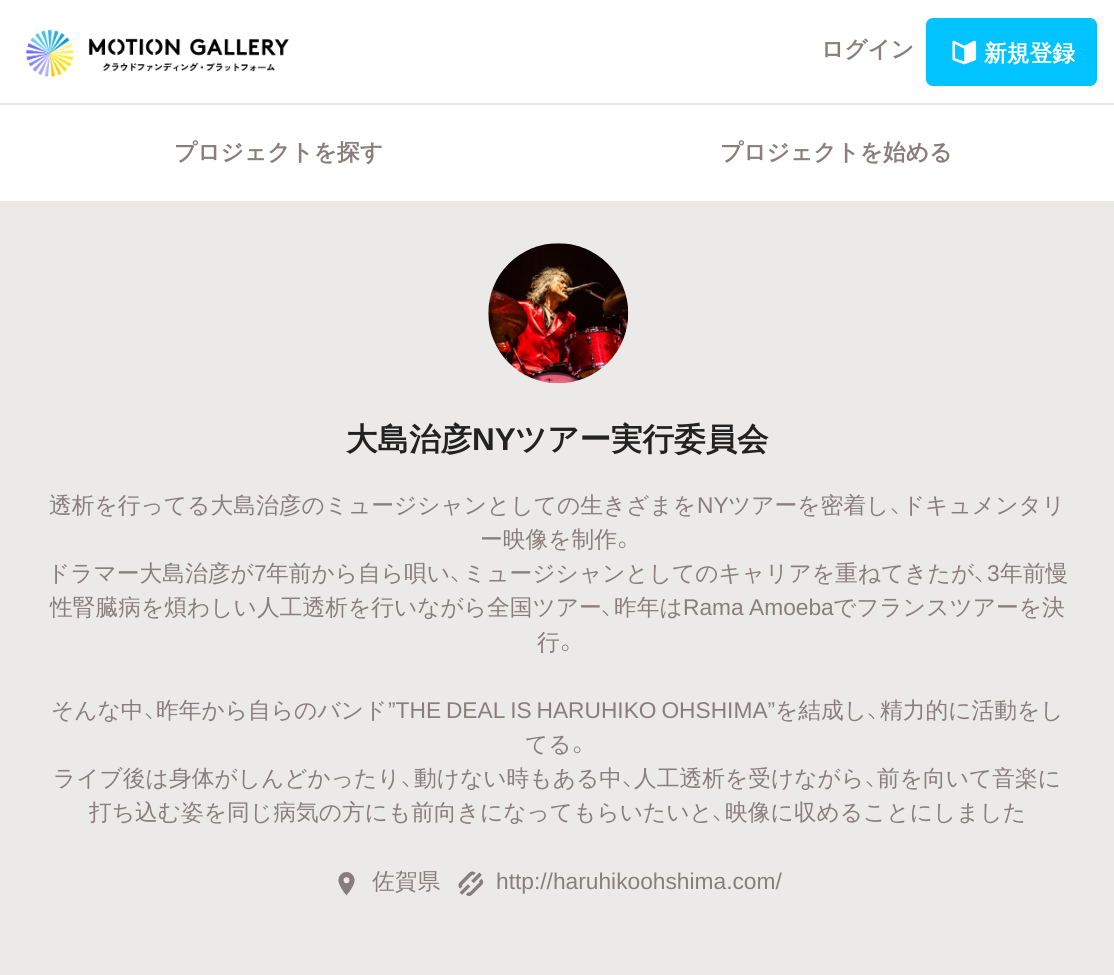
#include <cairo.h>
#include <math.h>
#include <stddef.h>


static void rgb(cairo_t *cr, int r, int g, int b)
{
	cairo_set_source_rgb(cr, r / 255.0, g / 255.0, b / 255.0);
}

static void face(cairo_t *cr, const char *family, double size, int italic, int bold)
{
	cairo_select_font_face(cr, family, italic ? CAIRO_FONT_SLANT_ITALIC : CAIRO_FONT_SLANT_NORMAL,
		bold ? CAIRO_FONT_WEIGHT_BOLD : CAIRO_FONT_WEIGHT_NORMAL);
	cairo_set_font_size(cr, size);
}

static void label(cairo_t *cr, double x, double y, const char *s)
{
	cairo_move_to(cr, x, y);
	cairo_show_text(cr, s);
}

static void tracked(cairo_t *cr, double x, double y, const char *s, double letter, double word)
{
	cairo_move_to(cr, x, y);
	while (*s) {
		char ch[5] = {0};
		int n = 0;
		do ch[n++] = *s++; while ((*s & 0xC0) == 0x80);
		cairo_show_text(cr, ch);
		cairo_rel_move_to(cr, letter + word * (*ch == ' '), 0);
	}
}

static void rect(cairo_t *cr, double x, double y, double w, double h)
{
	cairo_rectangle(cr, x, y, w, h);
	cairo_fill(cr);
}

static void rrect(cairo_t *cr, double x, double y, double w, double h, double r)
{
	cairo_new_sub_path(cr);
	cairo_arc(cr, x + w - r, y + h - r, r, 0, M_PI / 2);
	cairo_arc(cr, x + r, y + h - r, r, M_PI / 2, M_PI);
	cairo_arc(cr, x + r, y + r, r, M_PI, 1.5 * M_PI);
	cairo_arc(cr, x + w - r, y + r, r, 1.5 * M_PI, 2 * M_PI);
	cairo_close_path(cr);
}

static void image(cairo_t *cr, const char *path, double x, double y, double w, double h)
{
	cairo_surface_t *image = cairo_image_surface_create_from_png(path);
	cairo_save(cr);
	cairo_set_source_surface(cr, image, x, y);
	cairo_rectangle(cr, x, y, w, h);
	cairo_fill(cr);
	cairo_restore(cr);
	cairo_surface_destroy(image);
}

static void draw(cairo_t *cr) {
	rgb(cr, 255, 255, 255);
	cairo_paint(cr);
	image(cr, "image0.png", 26, 29, 263, 48);
	face(cr, "WenQuanYi Zen Hei", 22.75, 0, 1);
	rgb(cr, 137, 126, 123);
	label(cr, 821, 57, "ログイン");
	rgb(cr, 0, 195, 255);
	rrect(cr, 926, 18, 171, 68, 7);
	cairo_fill(cr);
	image(cr, "image1.png", 952, 40, 25, 25);
	rgb(cr, 255, 255, 255);
	label(cr, 984, 61, "新規登録");
	rgb(cr, 235, 234, 233);
	rect(cr, 0, 103, 1114, 2);
	rgb(cr, 137, 126, 123);
	label(cr, 174, 160, "プロジェクトを探す");
	label(cr, 720, 160, "プロジェクトを始める");
	rgb(cr, 235, 234, 233);
	rect(cr, 0, 201, 1114, 774);
	image(cr, "image2.png", 488, 243, 141, 141);
	face(cr, "WenQuanYi Zen Hei", 31.5, 0, 1);
	rgb(cr, 34, 34, 34);
	label(cr, 346, 450, "大島治彦");
	face(cr, "Liberation Sans", 31.5, 0, 1);
	label(cr, 472, 450, "NY");
	face(cr, "WenQuanYi Zen Hei", 31.5, 0, 1);
	label(cr, 515, 450, "ツアー実行委員会");
	face(cr, "WenQuanYi Zen Hei Medium", 22.75, 0, 0);
	rgb(cr, 137, 126, 123);
	label(cr, 49, 513, "透析を行ってる大島治彦のミュージシャンとしての生きざまを");
	face(cr, "Liberation Sans", 22.75, 0, 0);
	label(cr, 697, 513, "NY");
	face(cr, "WenQuanYi Zen Hei Medium", 22.75, 0, 0);
	label(cr, 728, 513, "ツアーを密着し");
	face(cr, "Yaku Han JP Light", 22.75, 0, 0);
	label(cr, 890, 513, "、");
	face(cr, "WenQuanYi Zen Hei Medium", 22.75, 0, 0);
	label(cr, 902, 513, "ドキュメンタリ");
	label(cr, 480, 547, "ー映像を制作");
	face(cr, "Yaku Han JP Light", 22.75, 0, 0);
	label(cr, 617, 547, "。");
	face(cr, "WenQuanYi Zen Hei Medium", 22.75, 0, 0);
	label(cr, 47, 581, "ドラマー大島治彦が");
	face(cr, "Liberation Sans", 22.75, 0, 0);
	label(cr, 254, 581, "7");
	face(cr, "WenQuanYi Zen Hei Medium", 22.75, 0, 0);
	label(cr, 266, 581, "年前から自ら唄い");
	face(cr, "Yaku Han JP Light", 22.75, 0, 0);
	label(cr, 450, 581, "、");
	face(cr, "WenQuanYi Zen Hei Medium", 22.75, 0, 0);
	label(cr, 463, 581, "ミュージシャンとしてのキャリアを重ねてきたが");
	face(cr, "Yaku Han JP Light", 22.75, 0, 0);
	label(cr, 974, 581, "、");
	face(cr, "Liberation Sans", 22.75, 0, 0);
	label(cr, 987, 581, "3");
	face(cr, "WenQuanYi Zen Hei Medium", 22.75, 0, 0);
	label(cr, 1000, 581, "年前慢");
	label(cr, 50, 615, "性腎臓病を煩わしい人工透析を行いながら全国ツアー");
	face(cr, "Yaku Han JP Light", 22.75, 0, 0);
	label(cr, 601, 615, "、");
	face(cr, "WenQuanYi Zen Hei Medium", 22.75, 0, 0);
	label(cr, 614, 615, "昨年は");
	face(cr, "Liberation Sans", 22.75, 0, 0);
	tracked(cr, 683, 615, "Rama Amoeba", 0, -1);
	face(cr, "WenQuanYi Zen Hei Medium", 22.75, 0, 0);
	label(cr, 833, 615, "でフランスツアーを決");
	label(cr, 537, 650, "行");
	face(cr, "Yaku Han JP Light", 22.75, 0, 0);
	label(cr, 560, 650, "。");
	face(cr, "WenQuanYi Zen Hei Medium", 22.75, 0, 0);
	label(cr, 51, 718, "そんな中");
	face(cr, "Yaku Han JP Light", 22.75, 0, 0);
	label(cr, 144, 718, "、");
	face(cr, "WenQuanYi Zen Hei Medium", 22.75, 0, 0);
	label(cr, 156, 718, "昨年から自らのバンド");
	face(cr, "Liberation Sans", 22.75, 0, 0);
	tracked(cr, 388, 718, "”THE DEAL IS HARUHIKO OHSHIMA”", 0, -1.5);
	face(cr, "WenQuanYi Zen Hei Medium", 22.75, 0, 0);
	label(cr, 775, 718, "を結成し");
	face(cr, "Yaku Han JP Light", 22.75, 0, 0);
	label(cr, 867, 718, "、");
	face(cr, "WenQuanYi Zen Hei Medium", 22.75, 0, 0);
	label(cr, 880, 718, "精力的に活動をし");
	label(cr, 525, 752, "てる");
	face(cr, "Yaku Han JP Light", 22.75, 0, 0);
	label(cr, 572, 752, "。");
	face(cr, "WenQuanYi Zen Hei Medium", 22.75, 0, 0);
	label(cr, 53, 786, "ライブ後は身体がしんどかったり");
	face(cr, "Yaku Han JP Light", 22.75, 0, 0);
	label(cr, 401, 786, "、");
	face(cr, "WenQuanYi Zen Hei Medium", 22.75, 0, 0);
	label(cr, 414, 786, "動けない時もある中");
	face(cr, "Yaku Han JP Light", 22.75, 0, 0);
	label(cr, 622, 786, "、");
	face(cr, "WenQuanYi Zen Hei Medium", 22.75, 0, 0);
	label(cr, 634, 786, "人工透析を受けながら");
	face(cr, "Yaku Han JP Light", 22.75, 0, 0);
	label(cr, 865, 786, "、");
	face(cr, "WenQuanYi Zen Hei Medium", 22.75, 0, 0);
	label(cr, 877, 786, "前を向いて音楽に");
	label(cr, 89, 820, "打ち込む姿を同じ病気の方にも前向きになってもらいたいと");
	face(cr, "Yaku Han JP Light", 22.75, 0, 0);
	label(cr, 712, 820, "、");
	face(cr, "WenQuanYi Zen Hei Medium", 22.75, 0, 0);
	label(cr, 725, 820, "映像に収めることにしました");
	image(cr, "image3.png", 338, 872, 17, 24);
	label(cr, 372, 889, "佐賀県");
	image(cr, "image4.png", 458, 871, 26, 25);
	face(cr, "Liberation Sans", 22.75, 0, 0);
	label(cr, 496, 889, "http://haruhikoohshima.com/");
}

int main(void) {
	cairo_surface_t *surface = cairo_image_surface_create(CAIRO_FORMAT_RGB24, 1114, 975);
	cairo_t *cr = cairo_create(surface);
	cairo_font_options_t *options = cairo_font_options_create();
	cairo_font_options_set_hint_metrics(options, CAIRO_HINT_METRICS_OFF);
	cairo_font_options_set_hint_style(options, CAIRO_HINT_STYLE_NONE);
	cairo_set_font_options(cr, options);
	cairo_set_miter_limit(cr, 4);
	draw(cr);
	cairo_surface_write_to_png(surface, "render.png");
	cairo_font_options_destroy(options);
	cairo_destroy(cr);
	cairo_surface_destroy(surface);
	return 0;
}
